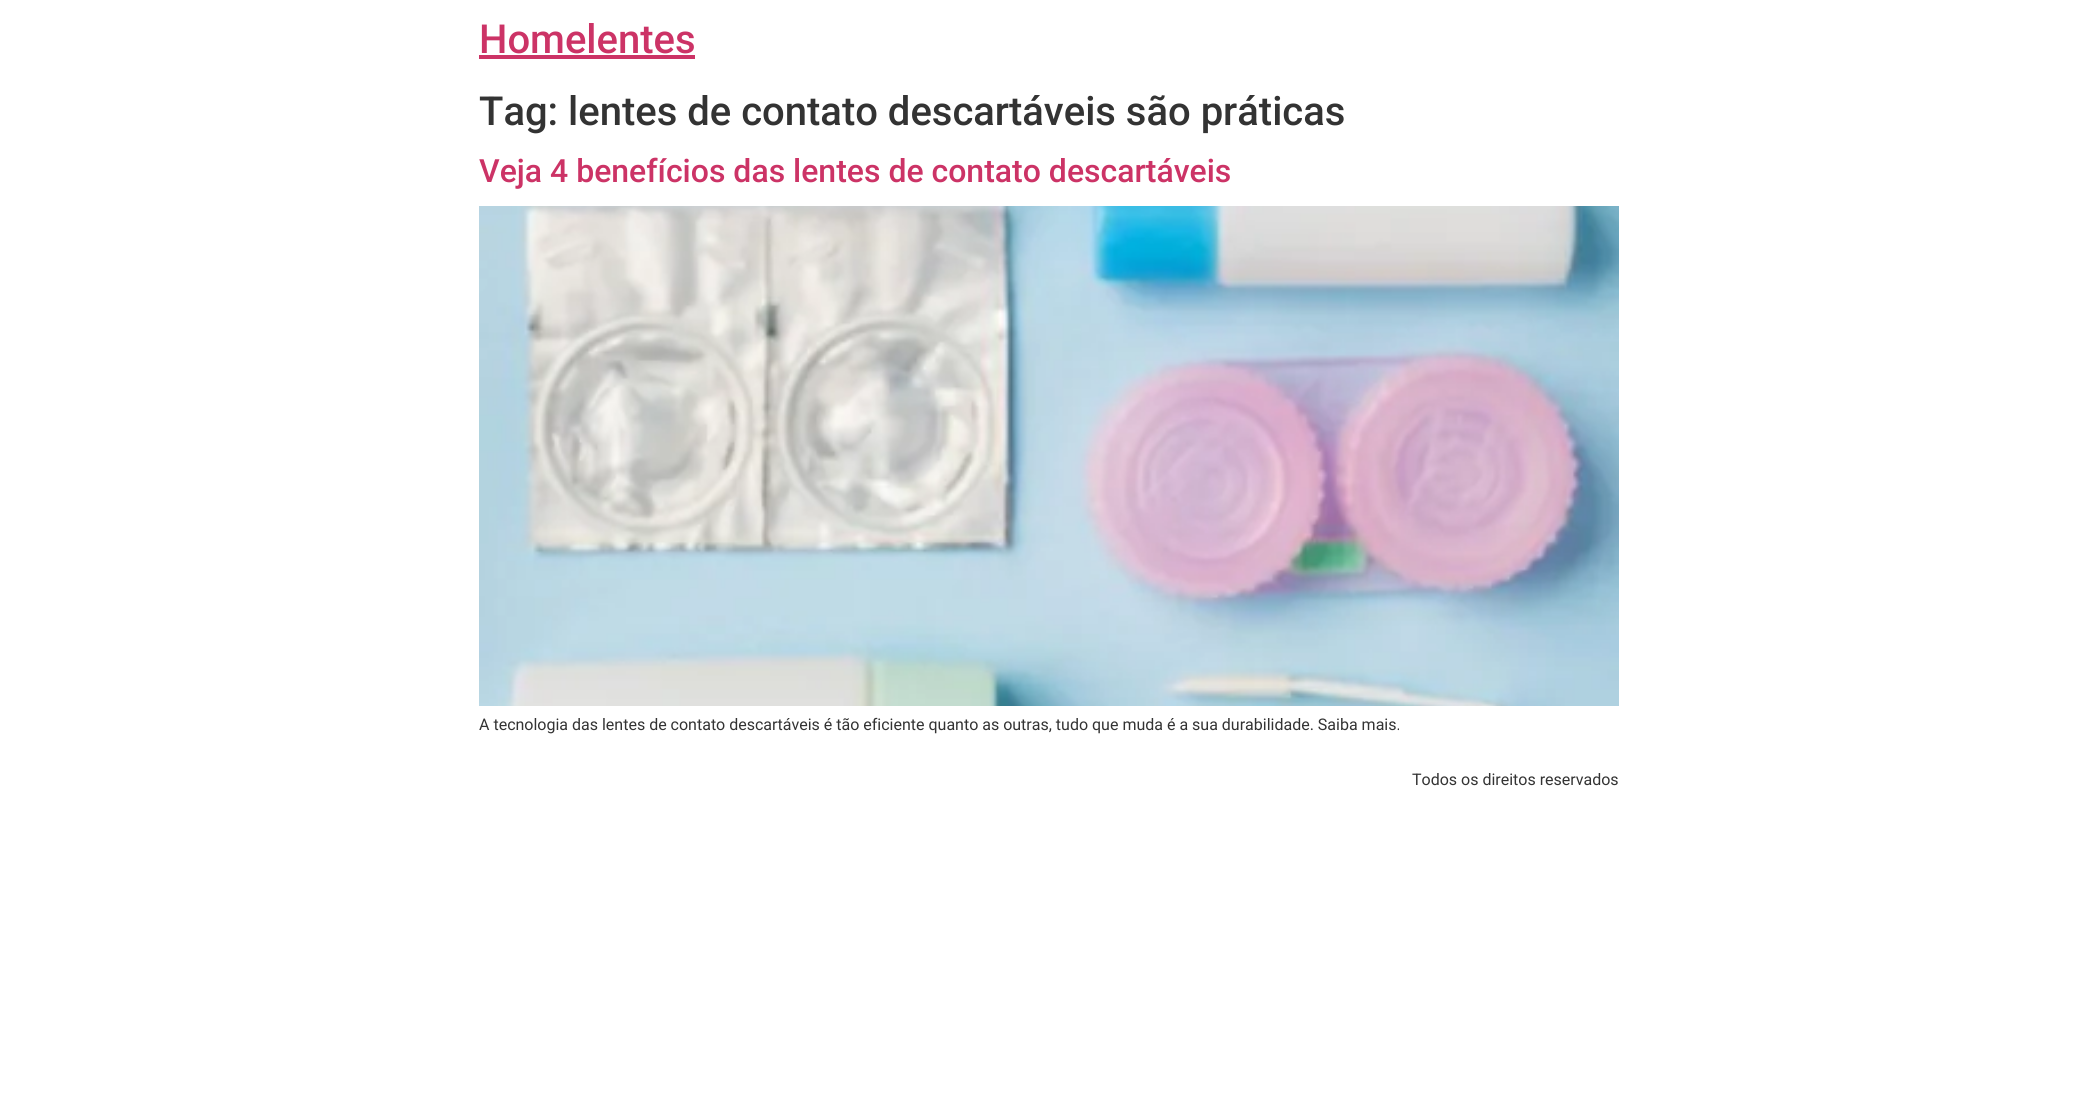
#include <cairo.h>
#include <math.h>
#include <stddef.h>


static void rgb(cairo_t *cr, int r, int g, int b)
{
	cairo_set_source_rgb(cr, r / 255.0, g / 255.0, b / 255.0);
}

static void face(cairo_t *cr, const char *family, double size, int italic, int bold)
{
	cairo_select_font_face(cr, family, italic ? CAIRO_FONT_SLANT_ITALIC : CAIRO_FONT_SLANT_NORMAL,
		bold ? CAIRO_FONT_WEIGHT_BOLD : CAIRO_FONT_WEIGHT_NORMAL);
	cairo_set_font_size(cr, size);
}

static void label(cairo_t *cr, double x, double y, const char *s)
{
	cairo_move_to(cr, x, y);
	cairo_show_text(cr, s);
}

static void rect(cairo_t *cr, double x, double y, double w, double h)
{
	cairo_rectangle(cr, x, y, w, h);
	cairo_fill(cr);
}

static void image(cairo_t *cr, const char *path, double x, double y, double w, double h)
{
	cairo_surface_t *image = cairo_image_surface_create_from_png(path);
	cairo_save(cr);
	cairo_set_source_surface(cr, image, x, y);
	cairo_rectangle(cr, x, y, w, h);
	cairo_fill(cr);
	cairo_restore(cr);
	cairo_surface_destroy(image);
}

static void draw(cairo_t *cr) {
	rgb(cr, 255, 255, 255);
	cairo_paint(cr);
	face(cr, "Roboto Medium", 40, 0, 0);
	rgb(cr, 204, 51, 102);
	label(cr, 479, 53, "Homelentes");
	rect(cr, 479, 55, 216, 4);
	rgb(cr, 51, 51, 51);
	label(cr, 479, 125, "Tag: lentes de contato descartáveis são práticas");
	face(cr, "Roboto Medium", 32, 0, 0);
	rgb(cr, 204, 51, 102);
	label(cr, 479, 182, "Veja 4 benefícios das lentes de contato descartáveis");
	image(cr, "image0.png", 479, 206, 1140, 500);
	face(cr, "Roboto", 16, 0, 0);
	rgb(cr, 51, 51, 51);
	label(cr, 479, 730, "A tecnologia das lentes de contato descartáveis é tão eficiente quanto as outras, tudo que muda é a sua durabilidade. Saiba mais.");
	label(cr, 1412, 785, "Todos os direitos reservados");
}

int main(void) {
	cairo_surface_t *surface = cairo_image_surface_create(CAIRO_FORMAT_RGB24, 2097, 1100);
	cairo_t *cr = cairo_create(surface);
	cairo_font_options_t *options = cairo_font_options_create();
	cairo_font_options_set_hint_metrics(options, CAIRO_HINT_METRICS_OFF);
	cairo_font_options_set_hint_style(options, CAIRO_HINT_STYLE_NONE);
	cairo_set_font_options(cr, options);
	cairo_set_miter_limit(cr, 4);
	draw(cr);
	cairo_surface_write_to_png(surface, "render.png");
	cairo_font_options_destroy(options);
	cairo_destroy(cr);
	cairo_surface_destroy(surface);
	return 0;
}
